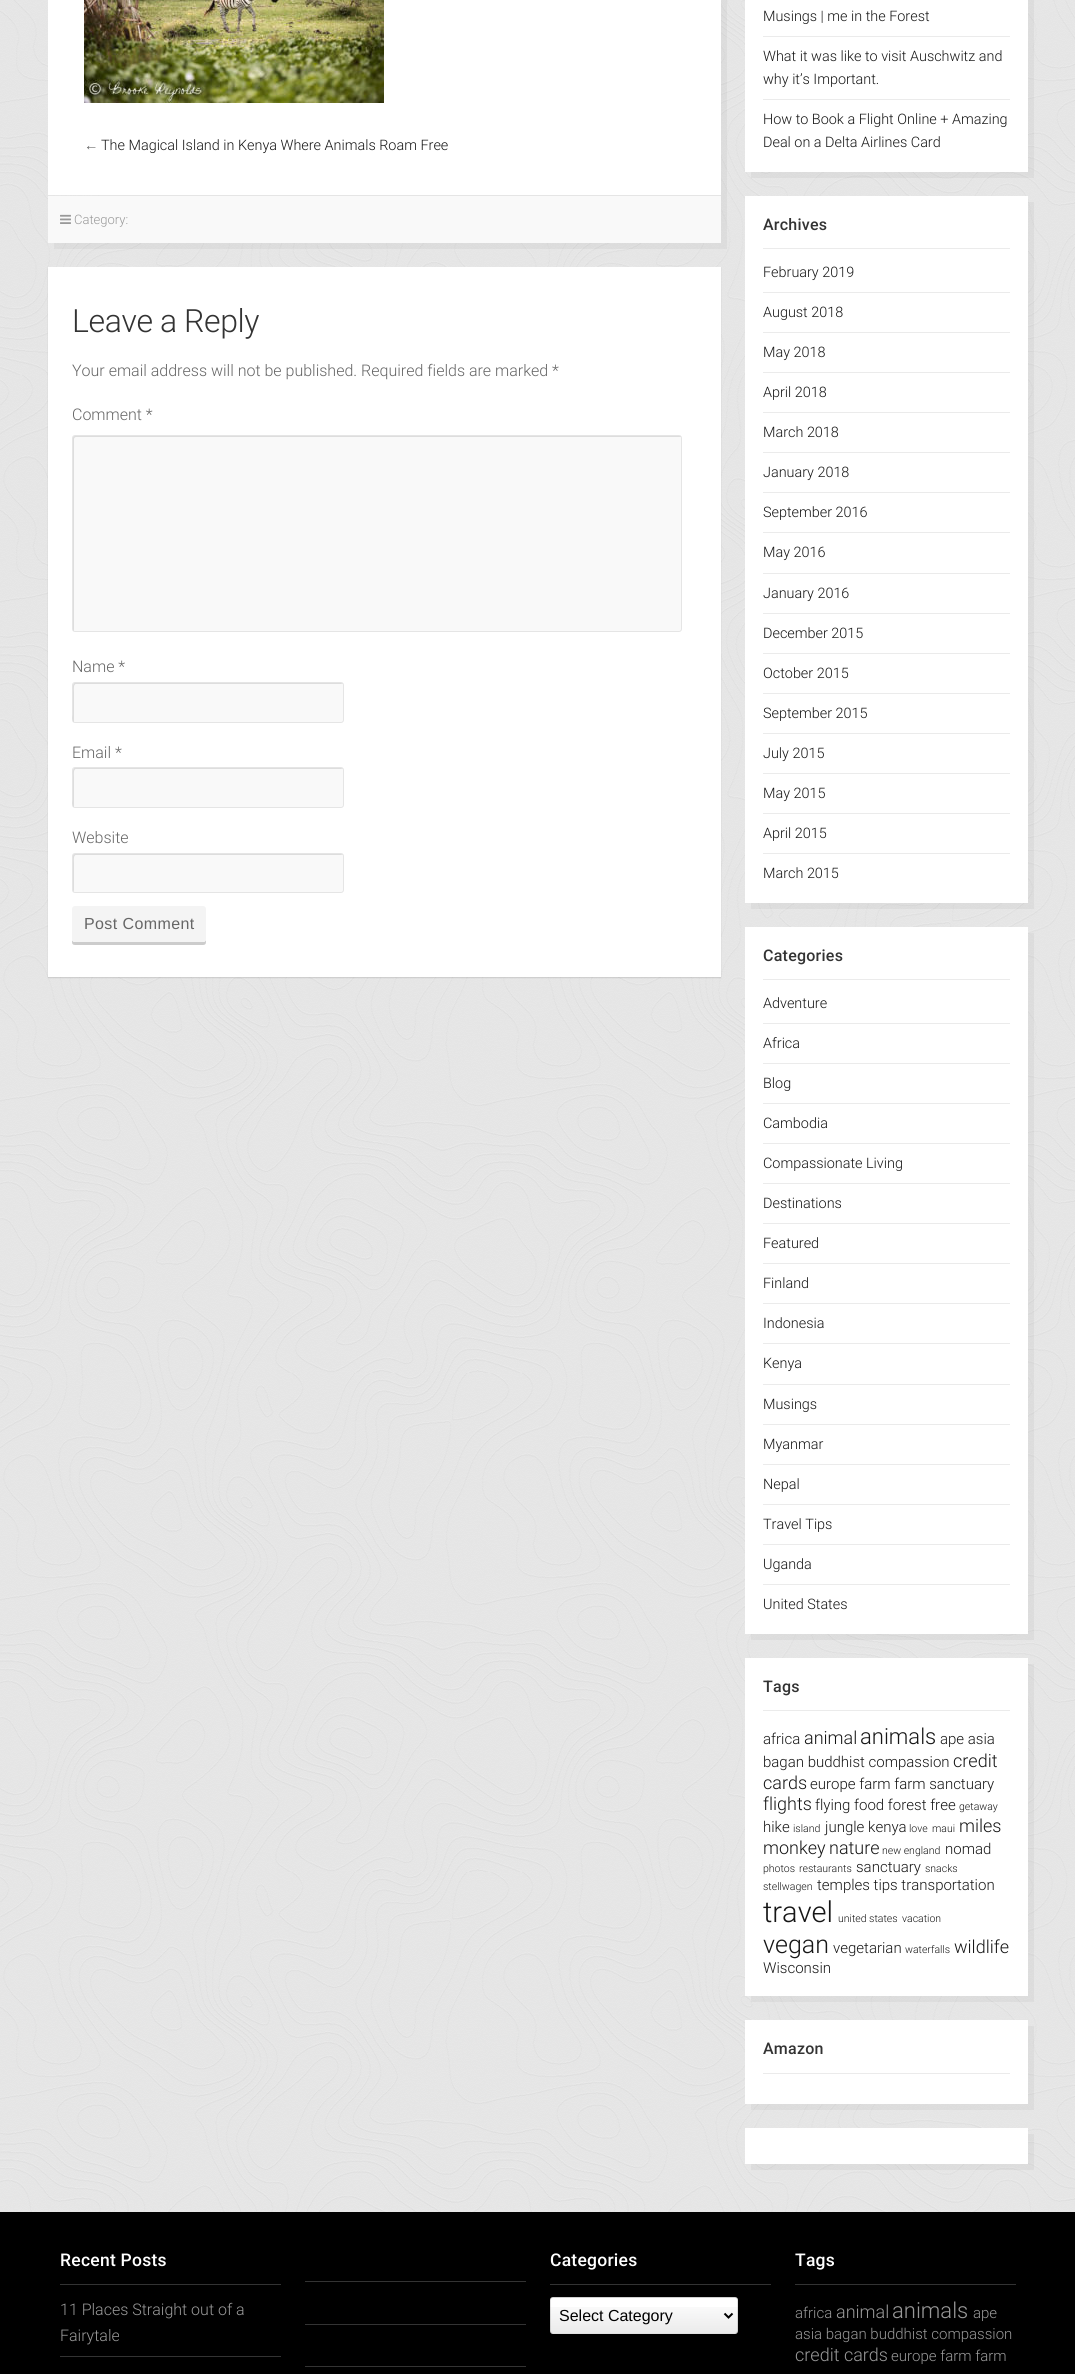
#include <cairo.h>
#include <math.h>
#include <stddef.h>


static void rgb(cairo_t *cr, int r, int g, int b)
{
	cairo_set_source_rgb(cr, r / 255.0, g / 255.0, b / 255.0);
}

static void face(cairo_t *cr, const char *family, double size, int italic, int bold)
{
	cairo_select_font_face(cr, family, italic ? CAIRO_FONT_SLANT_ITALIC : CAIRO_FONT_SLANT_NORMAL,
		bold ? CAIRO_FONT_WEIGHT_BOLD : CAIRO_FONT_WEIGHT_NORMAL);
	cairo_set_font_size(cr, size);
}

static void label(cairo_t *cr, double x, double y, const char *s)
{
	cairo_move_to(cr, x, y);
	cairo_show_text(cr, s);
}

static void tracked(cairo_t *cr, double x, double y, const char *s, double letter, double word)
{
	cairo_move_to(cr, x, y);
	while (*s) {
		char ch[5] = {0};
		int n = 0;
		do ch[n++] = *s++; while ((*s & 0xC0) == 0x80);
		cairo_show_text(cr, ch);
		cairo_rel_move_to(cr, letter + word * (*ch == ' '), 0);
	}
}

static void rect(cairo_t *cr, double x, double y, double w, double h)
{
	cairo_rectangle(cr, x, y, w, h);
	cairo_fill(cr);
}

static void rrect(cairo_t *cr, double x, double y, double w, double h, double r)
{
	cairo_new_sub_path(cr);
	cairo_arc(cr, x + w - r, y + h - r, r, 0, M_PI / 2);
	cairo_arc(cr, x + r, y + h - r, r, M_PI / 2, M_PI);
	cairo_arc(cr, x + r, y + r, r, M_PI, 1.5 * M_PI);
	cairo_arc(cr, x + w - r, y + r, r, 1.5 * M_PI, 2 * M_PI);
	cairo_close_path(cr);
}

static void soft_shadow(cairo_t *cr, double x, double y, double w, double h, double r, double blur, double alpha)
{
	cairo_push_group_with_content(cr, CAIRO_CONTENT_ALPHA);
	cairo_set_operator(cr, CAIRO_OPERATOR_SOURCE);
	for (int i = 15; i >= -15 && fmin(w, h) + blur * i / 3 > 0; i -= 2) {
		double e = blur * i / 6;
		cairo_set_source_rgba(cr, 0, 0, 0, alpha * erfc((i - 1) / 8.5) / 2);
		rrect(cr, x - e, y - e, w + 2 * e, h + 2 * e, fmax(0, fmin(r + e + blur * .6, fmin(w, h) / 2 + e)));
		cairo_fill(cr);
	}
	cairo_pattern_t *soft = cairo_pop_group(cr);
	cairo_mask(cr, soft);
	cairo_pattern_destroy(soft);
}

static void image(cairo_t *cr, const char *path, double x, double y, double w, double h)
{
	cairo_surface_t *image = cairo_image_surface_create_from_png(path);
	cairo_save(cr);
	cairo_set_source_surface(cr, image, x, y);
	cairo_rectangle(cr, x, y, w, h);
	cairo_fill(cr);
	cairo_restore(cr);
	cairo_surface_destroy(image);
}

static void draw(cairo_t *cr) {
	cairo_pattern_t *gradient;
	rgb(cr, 255, 255, 255);
	cairo_paint(cr);
	image(cr, "image0.png", 0, 0, 1075, 2212);
	cairo_set_source_rgba(cr, 0, 0, 0, 0.04);
	cairo_new_path(cr);
	cairo_move_to(cr, 54, 243);
	cairo_line_to(cr, 54, 249);
	cairo_line_to(cr, 727, 249);
	cairo_line_to(cr, 727, -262);
	cairo_line_to(cr, 721, -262);
	cairo_line_to(cr, 721, 243);
	cairo_close_path(cr);
	cairo_fill(cr);
	rgb(cr, 255, 255, 255);
	rect(cr, 48, 0, 673, 195);
	image(cr, "image1.png", 84, 0, 300, 103);
	face(cr, "Liberation Sans", 14.4, 0, 0);
	rgb(cr, 102, 102, 102);
	label(cr, 84, 150, "←");
	face(cr, "Roboto Light", 14.4, 0, 0);
	rgb(cr, 22, 22, 22);
	label(cr, 101, 150, "The Magical Island in Kenya Where Animals Roam Free");
	rgb(cr, 249, 249, 249);
	rect(cr, 48, 196, 673, 47);
	rgb(cr, 229, 229, 229);
	rect(cr, 99, 195, 622, 1);
	image(cr, "image2.png", 60, 214, 11, 10);
	face(cr, "Roboto Light", 13, 0, 0);
	rgb(cr, 153, 153, 153);
	label(cr, 74, 224, "Category:");
	rgb(cr, 0, 0, 0);
	soft_shadow(cr, 48, 268, 673, 710, 0, 0.5, 0.12);
	rgb(cr, 255, 255, 255);
	rect(cr, 48, 267, 673, 710);
	face(cr, "Roboto Light", 32, 0, 0);
	rgb(cr, 51, 51, 51);
	tracked(cr, 72, 332, "Leave a Reply", -0.4, 0);
	face(cr, "Roboto Light", 16, 0, 0);
	rgb(cr, 102, 102, 102);
	label(cr, 72, 376, "Your email address will not be published. Required fields are marked *");
	label(cr, 72, 420, "Comment *");
	rgb(cr, 249, 249, 249);
	rrect(cr, 72, 435, 610, 197, 3);
	cairo_fill(cr);
	rgb(cr, 221, 221, 221);
	cairo_new_path(cr);
	cairo_move_to(cr, 76, 437);
	cairo_line_to(cr, 681, 437);
	cairo_curve_to(cr, 681, 437, 680, 436, 679, 436);
	cairo_line_to(cr, 75, 436);
	cairo_curve_to(cr, 74, 436, 73, 437, 73, 438);
	cairo_line_to(cr, 73, 629);
	cairo_curve_to(cr, 73, 630, 74, 631, 74, 631);
	cairo_line_to(cr, 74, 439);
	cairo_curve_to(cr, 74, 438, 75, 437, 76, 437);
	cairo_close_path(cr);
	cairo_fill(cr);
	rrect(cr, 72.5, 435.5, 609, 196, 2.5);
	cairo_set_source_rgba(cr, 0, 0, 0, 0.08);
	cairo_set_line_width(cr, 1);
	cairo_stroke(cr);
	rgb(cr, 102, 102, 102);
	label(cr, 72, 672, "Name *");
	rgb(cr, 249, 249, 249);
	rrect(cr, 72, 682, 272, 41, 3);
	cairo_fill(cr);
	rgb(cr, 221, 221, 221);
	cairo_new_path(cr);
	cairo_move_to(cr, 76, 684);
	cairo_line_to(cr, 343, 684);
	cairo_line_to(cr, 341, 683);
	cairo_line_to(cr, 75, 683);
	cairo_curve_to(cr, 72, 683, 73, 690, 73, 691);
	cairo_line_to(cr, 73, 714);
	cairo_curve_to(cr, 73, 715, 72, 721, 74, 722);
	cairo_line_to(cr, 74, 692);
	cairo_curve_to(cr, 74, 691, 73, 684, 76, 684);
	cairo_close_path(cr);
	cairo_fill(cr);
	rrect(cr, 72.5, 682.5, 271, 40, 2.5);
	cairo_set_source_rgba(cr, 0, 0, 0, 0.08);
	cairo_stroke(cr);
	rgb(cr, 102, 102, 102);
	label(cr, 72, 758, "Email *");
	rgb(cr, 249, 249, 249);
	rrect(cr, 72, 767, 272, 41, 3);
	cairo_fill(cr);
	rgb(cr, 221, 221, 221);
	cairo_new_path(cr);
	cairo_move_to(cr, 76, 769);
	cairo_line_to(cr, 343, 769);
	cairo_line_to(cr, 341, 768);
	cairo_line_to(cr, 75, 768);
	cairo_curve_to(cr, 72, 768, 73, 775, 73, 776);
	cairo_line_to(cr, 73, 799);
	cairo_curve_to(cr, 73, 800, 72, 806, 74, 807);
	cairo_line_to(cr, 74, 777);
	cairo_curve_to(cr, 74, 776, 73, 769, 76, 769);
	cairo_close_path(cr);
	cairo_fill(cr);
	rrect(cr, 72.5, 767.5, 271, 40, 2.5);
	cairo_set_source_rgba(cr, 0, 0, 0, 0.08);
	cairo_stroke(cr);
	rgb(cr, 102, 102, 102);
	label(cr, 72, 843, "Website");
	rgb(cr, 249, 249, 249);
	rrect(cr, 72, 853, 272, 40, 3);
	cairo_fill(cr);
	rgb(cr, 221, 221, 221);
	cairo_new_path(cr);
	cairo_move_to(cr, 76, 855);
	cairo_line_to(cr, 343, 855);
	cairo_line_to(cr, 341, 854);
	cairo_line_to(cr, 75, 854);
	cairo_curve_to(cr, 74, 854, 73, 855, 73, 856);
	cairo_line_to(cr, 73, 890);
	cairo_line_to(cr, 74, 892);
	cairo_line_to(cr, 74, 863);
	cairo_curve_to(cr, 74, 862, 73, 855, 76, 855);
	cairo_close_path(cr);
	cairo_fill(cr);
	rrect(cr, 72.5, 853.5, 271, 39, 2.5);
	cairo_set_source_rgba(cr, 0, 0, 0, 0.08);
	cairo_stroke(cr);
	rgb(cr, 204, 204, 204);
	cairo_new_path(cr);
	cairo_move_to(cr, 72, 939);
	cairo_line_to(cr, 72, 942);
	cairo_curve_to(cr, 72, 944, 73, 945, 75, 945);
	cairo_line_to(cr, 203, 945);
	cairo_curve_to(cr, 205, 945, 206, 944, 206, 942);
	cairo_line_to(cr, 206, 939);
	cairo_curve_to(cr, 206, 941, 205, 942, 203, 942);
	cairo_line_to(cr, 75, 942);
	cairo_curve_to(cr, 73, 942, 72, 941, 72, 939);
	cairo_close_path(cr);
	cairo_fill(cr);
	rgb(cr, 244, 244, 244);
	rrect(cr, 72, 906, 134, 36, 3);
	cairo_fill(cr);
	face(cr, "Liberation Sans", 16, 0, 0);
	rgb(cr, 102, 102, 102);
	tracked(cr, 84, 929, "Post Comment", 0.4, 0);
	cairo_set_source_rgba(cr, 0, 0, 0, 0.04);
	cairo_new_path(cr);
	cairo_move_to(cr, 751, 172);
	cairo_line_to(cr, 751, 178);
	cairo_line_to(cr, 1034, 178);
	cairo_line_to(cr, 1034, -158);
	cairo_line_to(cr, 1028, -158);
	cairo_line_to(cr, 1028, 172);
	cairo_close_path(cr);
	cairo_fill(cr);
	rgb(cr, 255, 255, 255);
	rect(cr, 745, 0, 283, 172);
	face(cr, "Roboto Light", 14.4, 0, 0);
	rgb(cr, 22, 22, 22);
	label(cr, 763, 21, "Musings | me in the Forest");
	rgb(cr, 235, 235, 235);
	rect(cr, 763, 36, 247, 1);
	rgb(cr, 22, 22, 22);
	label(cr, 763, 61, "What it was like to visit Auschwitz and");
	label(cr, 763, 84, "why it’s Important.");
	rgb(cr, 235, 235, 235);
	rect(cr, 763, 99, 247, 1);
	rgb(cr, 22, 22, 22);
	label(cr, 763, 124, "How to Book a Flight Online + Amazing");
	label(cr, 763, 147, "Deal on a Delta Airlines Card");
	cairo_set_source_rgba(cr, 0, 0, 0, 0.04);
	cairo_new_path(cr);
	cairo_move_to(cr, 751, 903);
	cairo_line_to(cr, 751, 909);
	cairo_line_to(cr, 1034, 909);
	cairo_line_to(cr, 1034, 202);
	cairo_line_to(cr, 1028, 202);
	cairo_line_to(cr, 1028, 903);
	cairo_close_path(cr);
	cairo_fill(cr);
	rgb(cr, 255, 255, 255);
	rect(cr, 745, 196, 283, 707);
	rgb(cr, 235, 235, 235);
	rect(cr, 763, 248, 247, 1);
	face(cr, "Roboto Medium", 16, 0, 0);
	rgb(cr, 51, 51, 51);
	tracked(cr, 763, 230, "Archives", 0.25, 0);
	face(cr, "Roboto Light", 14.4, 0, 0);
	rgb(cr, 22, 22, 22);
	label(cr, 763, 277, "February 2019");
	rgb(cr, 235, 235, 235);
	rect(cr, 763, 292, 247, 1);
	rgb(cr, 22, 22, 22);
	label(cr, 763, 317, "August 2018");
	rgb(cr, 235, 235, 235);
	rect(cr, 763, 332, 247, 1);
	rgb(cr, 22, 22, 22);
	label(cr, 763, 357, "May 2018");
	rgb(cr, 235, 235, 235);
	rect(cr, 763, 372, 247, 1);
	rgb(cr, 22, 22, 22);
	label(cr, 763, 397, "April 2018");
	rgb(cr, 235, 235, 235);
	rect(cr, 763, 412, 247, 1);
	rgb(cr, 22, 22, 22);
	label(cr, 763, 437, "March 2018");
	rgb(cr, 235, 235, 235);
	rect(cr, 763, 452, 247, 1);
	rgb(cr, 22, 22, 22);
	label(cr, 763, 477, "January 2018");
	rgb(cr, 235, 235, 235);
	rect(cr, 763, 492, 247, 1);
	rgb(cr, 22, 22, 22);
	label(cr, 763, 517, "September 2016");
	rgb(cr, 235, 235, 235);
	rect(cr, 763, 532, 247, 1);
	rgb(cr, 22, 22, 22);
	label(cr, 763, 557, "May 2016");
	rgb(cr, 235, 235, 235);
	rect(cr, 763, 573, 247, 1);
	rgb(cr, 22, 22, 22);
	label(cr, 763, 598, "January 2016");
	rgb(cr, 235, 235, 235);
	rect(cr, 763, 613, 247, 1);
	rgb(cr, 22, 22, 22);
	label(cr, 763, 638, "December 2015");
	rgb(cr, 235, 235, 235);
	rect(cr, 763, 653, 247, 1);
	rgb(cr, 22, 22, 22);
	label(cr, 763, 678, "October 2015");
	rgb(cr, 235, 235, 235);
	rect(cr, 763, 693, 247, 1);
	rgb(cr, 22, 22, 22);
	label(cr, 763, 718, "September 2015");
	rgb(cr, 235, 235, 235);
	rect(cr, 763, 733, 247, 1);
	rgb(cr, 22, 22, 22);
	label(cr, 763, 758, "July 2015");
	rgb(cr, 235, 235, 235);
	rect(cr, 763, 773, 247, 1);
	rgb(cr, 22, 22, 22);
	label(cr, 763, 798, "May 2015");
	rgb(cr, 235, 235, 235);
	rect(cr, 763, 813, 247, 1);
	rgb(cr, 22, 22, 22);
	label(cr, 763, 838, "April 2015");
	rgb(cr, 235, 235, 235);
	rect(cr, 763, 853, 247, 1);
	rgb(cr, 22, 22, 22);
	label(cr, 763, 878, "March 2015");
	cairo_set_source_rgba(cr, 0, 0, 0, 0.04);
	cairo_new_path(cr);
	cairo_move_to(cr, 751, 1634);
	cairo_line_to(cr, 751, 1640);
	cairo_line_to(cr, 1034, 1640);
	cairo_line_to(cr, 1034, 933);
	cairo_line_to(cr, 1028, 933);
	cairo_line_to(cr, 1028, 1634);
	cairo_close_path(cr);
	cairo_fill(cr);
	rgb(cr, 255, 255, 255);
	rect(cr, 745, 927, 283, 707);
	rgb(cr, 235, 235, 235);
	rect(cr, 763, 979, 247, 1);
	face(cr, "Roboto Medium", 16, 0, 0);
	rgb(cr, 51, 51, 51);
	tracked(cr, 763, 961, "Categories", 0.25, 0);
	face(cr, "Roboto Light", 14.4, 0, 0);
	rgb(cr, 22, 22, 22);
	label(cr, 763, 1008, "Adventure");
	rgb(cr, 235, 235, 235);
	rect(cr, 763, 1023, 247, 1);
	rgb(cr, 22, 22, 22);
	label(cr, 763, 1048, "Africa");
	rgb(cr, 235, 235, 235);
	rect(cr, 763, 1063, 247, 1);
	rgb(cr, 22, 22, 22);
	label(cr, 763, 1088, "Blog");
	rgb(cr, 235, 235, 235);
	rect(cr, 763, 1103, 247, 1);
	rgb(cr, 22, 22, 22);
	label(cr, 763, 1128, "Cambodia");
	rgb(cr, 235, 235, 235);
	rect(cr, 763, 1143, 247, 1);
	rgb(cr, 22, 22, 22);
	label(cr, 763, 1168, "Compassionate Living");
	rgb(cr, 235, 235, 235);
	rect(cr, 763, 1183, 247, 1);
	rgb(cr, 22, 22, 22);
	label(cr, 763, 1208, "Destinations");
	rgb(cr, 235, 235, 235);
	rect(cr, 763, 1223, 247, 1);
	rgb(cr, 22, 22, 22);
	label(cr, 763, 1248, "Featured");
	rgb(cr, 235, 235, 235);
	rect(cr, 763, 1263, 247, 1);
	rgb(cr, 22, 22, 22);
	label(cr, 763, 1288, "Finland");
	rgb(cr, 235, 235, 235);
	rect(cr, 763, 1303, 247, 1);
	rgb(cr, 22, 22, 22);
	label(cr, 763, 1328, "Indonesia");
	rgb(cr, 235, 235, 235);
	rect(cr, 763, 1343, 247, 1);
	rgb(cr, 22, 22, 22);
	label(cr, 763, 1368, "Kenya");
	rgb(cr, 235, 235, 235);
	rect(cr, 763, 1384, 247, 1);
	rgb(cr, 22, 22, 22);
	label(cr, 763, 1409, "Musings");
	rgb(cr, 235, 235, 235);
	rect(cr, 763, 1424, 247, 1);
	rgb(cr, 22, 22, 22);
	label(cr, 763, 1449, "Myanmar");
	rgb(cr, 235, 235, 235);
	rect(cr, 763, 1464, 247, 1);
	rgb(cr, 22, 22, 22);
	label(cr, 763, 1489, "Nepal");
	rgb(cr, 235, 235, 235);
	rect(cr, 763, 1504, 247, 1);
	rgb(cr, 22, 22, 22);
	label(cr, 763, 1529, "Travel Tips");
	rgb(cr, 235, 235, 235);
	rect(cr, 763, 1544, 247, 1);
	rgb(cr, 22, 22, 22);
	label(cr, 763, 1569, "Uganda");
	rgb(cr, 235, 235, 235);
	rect(cr, 763, 1584, 247, 1);
	rgb(cr, 22, 22, 22);
	label(cr, 763, 1609, "United States");
	cairo_set_source_rgba(cr, 0, 0, 0, 0.04);
	cairo_new_path(cr);
	cairo_move_to(cr, 751, 1996);
	cairo_line_to(cr, 751, 2002);
	cairo_line_to(cr, 1034, 2002);
	cairo_line_to(cr, 1034, 1664);
	cairo_line_to(cr, 1028, 1664);
	cairo_line_to(cr, 1028, 1996);
	cairo_close_path(cr);
	cairo_fill(cr);
	rgb(cr, 255, 255, 255);
	rect(cr, 745, 1658, 283, 338);
	rgb(cr, 235, 235, 235);
	rect(cr, 763, 1710, 247, 1);
	face(cr, "Roboto Medium", 16, 0, 0);
	rgb(cr, 51, 51, 51);
	tracked(cr, 763, 1692, "Tags", 0.25, 0);
	face(cr, "Roboto Light", 15, 0, 0);
	rgb(cr, 22, 22, 22);
	label(cr, 763, 1744, "africa");
	face(cr, "Roboto Light", 18, 0, 0);
	label(cr, 804, 1744, "animal");
	face(cr, "Roboto Light", 22, 0, 0);
	label(cr, 860, 1744, "animals");
	face(cr, "Roboto Light", 15, 0, 0);
	label(cr, 940, 1744, "ape asia");
	label(cr, 763, 1767, "bagan buddhist compassion");
	face(cr, "Roboto Light", 18, 0, 0);
	label(cr, 953, 1767, "credit");
	label(cr, 763, 1789, "cards");
	face(cr, "Roboto Light", 15, 0, 0);
	label(cr, 810, 1789, "europe farm farm sanctuary");
	face(cr, "Roboto Light", 18, 0, 0);
	label(cr, 763, 1810, "flights");
	face(cr, "Roboto Light", 15, 0, 0);
	label(cr, 815, 1810, "flying food forest free");
	face(cr, "Roboto Light", 10.5, 0, 0);
	label(cr, 959, 1810, "getaway");
	face(cr, "Roboto Light", 15, 0, 0);
	label(cr, 763, 1832, "hike");
	face(cr, "Roboto Light", 10.5, 0, 0);
	label(cr, 793, 1832, "island");
	face(cr, "Roboto Light", 15, 0, 0);
	label(cr, 825, 1832, "jungle kenya");
	face(cr, "Roboto Light", 10.5, 0, 0);
	label(cr, 909, 1832, "love");
	label(cr, 932, 1832, "maui");
	face(cr, "Roboto Light", 18, 0, 0);
	label(cr, 959, 1832, "miles");
	label(cr, 763, 1854, "monkey");
	label(cr, 829, 1854, "nature");
	face(cr, "Roboto Light", 10.5, 0, 0);
	label(cr, 882, 1854, "new england");
	face(cr, "Roboto Light", 15, 0, 0);
	label(cr, 945, 1854, "nomad");
	face(cr, "Roboto Light", 10.5, 0, 0);
	label(cr, 763, 1872, "photos");
	label(cr, 799, 1872, "restaurants");
	face(cr, "Roboto Light", 15, 0, 0);
	label(cr, 856, 1872, "sanctuary");
	face(cr, "Roboto Light", 10.5, 0, 0);
	label(cr, 925, 1872, "snacks");
	label(cr, 763, 1890, "stellwagen");
	face(cr, "Roboto Light", 15, 0, 0);
	label(cr, 817, 1890, "temples tips transportation");
	face(cr, "Roboto Light", 29, 0, 0);
	label(cr, 763, 1922, "travel");
	face(cr, "Roboto Light", 10.5, 0, 0);
	label(cr, 838, 1922, "united states");
	label(cr, 902, 1922, "vacation");
	face(cr, "Roboto Light", 25, 0, 0);
	label(cr, 763, 1953, "vegan");
	face(cr, "Roboto Light", 15, 0, 0);
	label(cr, 833, 1953, "vegetarian");
	face(cr, "Roboto Light", 10.5, 0, 0);
	label(cr, 905, 1953, "waterfalls");
	face(cr, "Roboto Light", 18, 0, 0);
	label(cr, 954, 1953, "wildlife");
	face(cr, "Roboto Light", 15, 0, 0);
	label(cr, 763, 1973, "Wisconsin");
	cairo_set_source_rgba(cr, 0, 0, 0, 0.04);
	cairo_new_path(cr);
	cairo_move_to(cr, 751, 2104);
	cairo_line_to(cr, 751, 2110);
	cairo_line_to(cr, 1034, 2110);
	cairo_line_to(cr, 1034, 2026);
	cairo_line_to(cr, 1028, 2026);
	cairo_line_to(cr, 1028, 2104);
	cairo_close_path(cr);
	cairo_fill(cr);
	rgb(cr, 255, 255, 255);
	rect(cr, 745, 2020, 283, 84);
	rgb(cr, 235, 235, 235);
	rect(cr, 763, 2073, 247, 1);
	face(cr, "Roboto Medium", 16, 0, 0);
	rgb(cr, 51, 51, 51);
	tracked(cr, 763, 2054, "Amazon", 0.25, 0);
	cairo_set_source_rgba(cr, 0, 0, 0, 0.04);
	cairo_new_path(cr);
	cairo_move_to(cr, 751, 2164);
	cairo_line_to(cr, 751, 2170);
	cairo_line_to(cr, 1034, 2170);
	cairo_line_to(cr, 1034, 2134);
	cairo_line_to(cr, 1028, 2134);
	cairo_line_to(cr, 1028, 2164);
	cairo_close_path(cr);
	cairo_fill(cr);
	rgb(cr, 255, 255, 255);
	rect(cr, 745, 2128, 283, 36);
	rgb(cr, 0, 0, 0);
	rect(cr, 0, 2212, 1075, 162);
	rgb(cr, 51, 51, 51);
	rect(cr, 60, 2284, 221, 1);
	face(cr, "Roboto Medium", 17.5, 0, 0);
	rgb(cr, 255, 255, 255);
	tracked(cr, 60, 2266, "Recent Posts", 0.25, 0);
	face(cr, "Roboto Light", 16, 0, 0);
	rgb(cr, 153, 153, 153);
	label(cr, 60, 2315, "11 Places Straight out of a");
	label(cr, 60, 2341, "Fairytale");
	rgb(cr, 51, 51, 51);
	rect(cr, 60, 2356, 221, 1);
	rect(cr, 305, 2281, 221, 1);
	rect(cr, 305, 2324, 221, 1);
	rect(cr, 305, 2366, 221, 1);
	rect(cr, 550, 2284, 221, 1);
	face(cr, "Roboto Medium", 17.5, 0, 0);
	rgb(cr, 255, 255, 255);
	tracked(cr, 550, 2266, "Categories", 0.25, 0);
	rrect(cr, 550, 2297, 188, 37, 3);
	cairo_fill(cr);
	gradient = cairo_pattern_create_linear(644, 2263, 644, 2298);
	cairo_pattern_add_color_stop_rgba(gradient, 0, 0, 0, 0, 0);
	cairo_pattern_add_color_stop_rgba(gradient, 1, 0, 0, 0, 0.08);
	cairo_set_source(cr, gradient);
	cairo_pattern_destroy(gradient);
	rect(cr, 550, 2297, 188, 1);
	gradient = cairo_pattern_create_linear(644, 2298, 644, 2333);
	cairo_pattern_add_color_stop_rgba(gradient, 0, 0, 0, 0, 0);
	cairo_pattern_add_color_stop_rgba(gradient, 1, 0, 0, 0, 0.08);
	cairo_set_source(cr, gradient);
	cairo_pattern_destroy(gradient);
	rect(cr, 550, 2307, 188, 26);
	rrect(cr, 550.5, 2297.5, 187, 36, 2.5);
	cairo_set_source_rgba(cr, 0, 0, 0, 0.12);
	cairo_stroke(cr);
	cairo_new_path(cr);
	cairo_move_to(cr, 724.5, 2313.5);
	cairo_line_to(cr, 728.5, 2317.5);
	cairo_line_to(cr, 732.5, 2313.5);
	rgb(cr, 0, 0, 0);
	cairo_set_line_width(cr, 2);
	cairo_stroke(cr);
	face(cr, "Liberation Sans", 16, 0, 0);
	label(cr, 559, 2321, "Select Category");
	rgb(cr, 51, 51, 51);
	rect(cr, 795, 2284, 221, 1);
	face(cr, "Roboto Medium", 17.5, 0, 0);
	rgb(cr, 255, 255, 255);
	tracked(cr, 795, 2266, "Tags", 0.25, 0);
	face(cr, "Roboto Light", 15, 0, 0);
	rgb(cr, 153, 153, 153);
	label(cr, 795, 2318, "africa");
	face(cr, "Roboto Light", 18, 0, 0);
	label(cr, 836, 2318, "animal");
	face(cr, "Roboto Light", 22, 0, 0);
	label(cr, 892, 2318, "animals");
	face(cr, "Roboto Light", 15, 0, 0);
	label(cr, 973, 2318, "ape");
	label(cr, 795, 2339, "asia bagan buddhist compassion");
	face(cr, "Roboto Light", 18, 0, 0);
	label(cr, 795, 2361, "credit cards");
	face(cr, "Roboto Light", 15, 0, 0);
	label(cr, 891, 2361, "europe farm farm");
}

int main(void) {
	cairo_surface_t *surface = cairo_image_surface_create(CAIRO_FORMAT_RGB24, 1075, 2374);
	cairo_t *cr = cairo_create(surface);
	cairo_font_options_t *options = cairo_font_options_create();
	cairo_font_options_set_hint_metrics(options, CAIRO_HINT_METRICS_OFF);
	cairo_font_options_set_hint_style(options, CAIRO_HINT_STYLE_NONE);
	cairo_set_font_options(cr, options);
	cairo_set_miter_limit(cr, 4);
	draw(cr);
	cairo_surface_write_to_png(surface, "render.png");
	cairo_font_options_destroy(options);
	cairo_destroy(cr);
	cairo_surface_destroy(surface);
	return 0;
}
